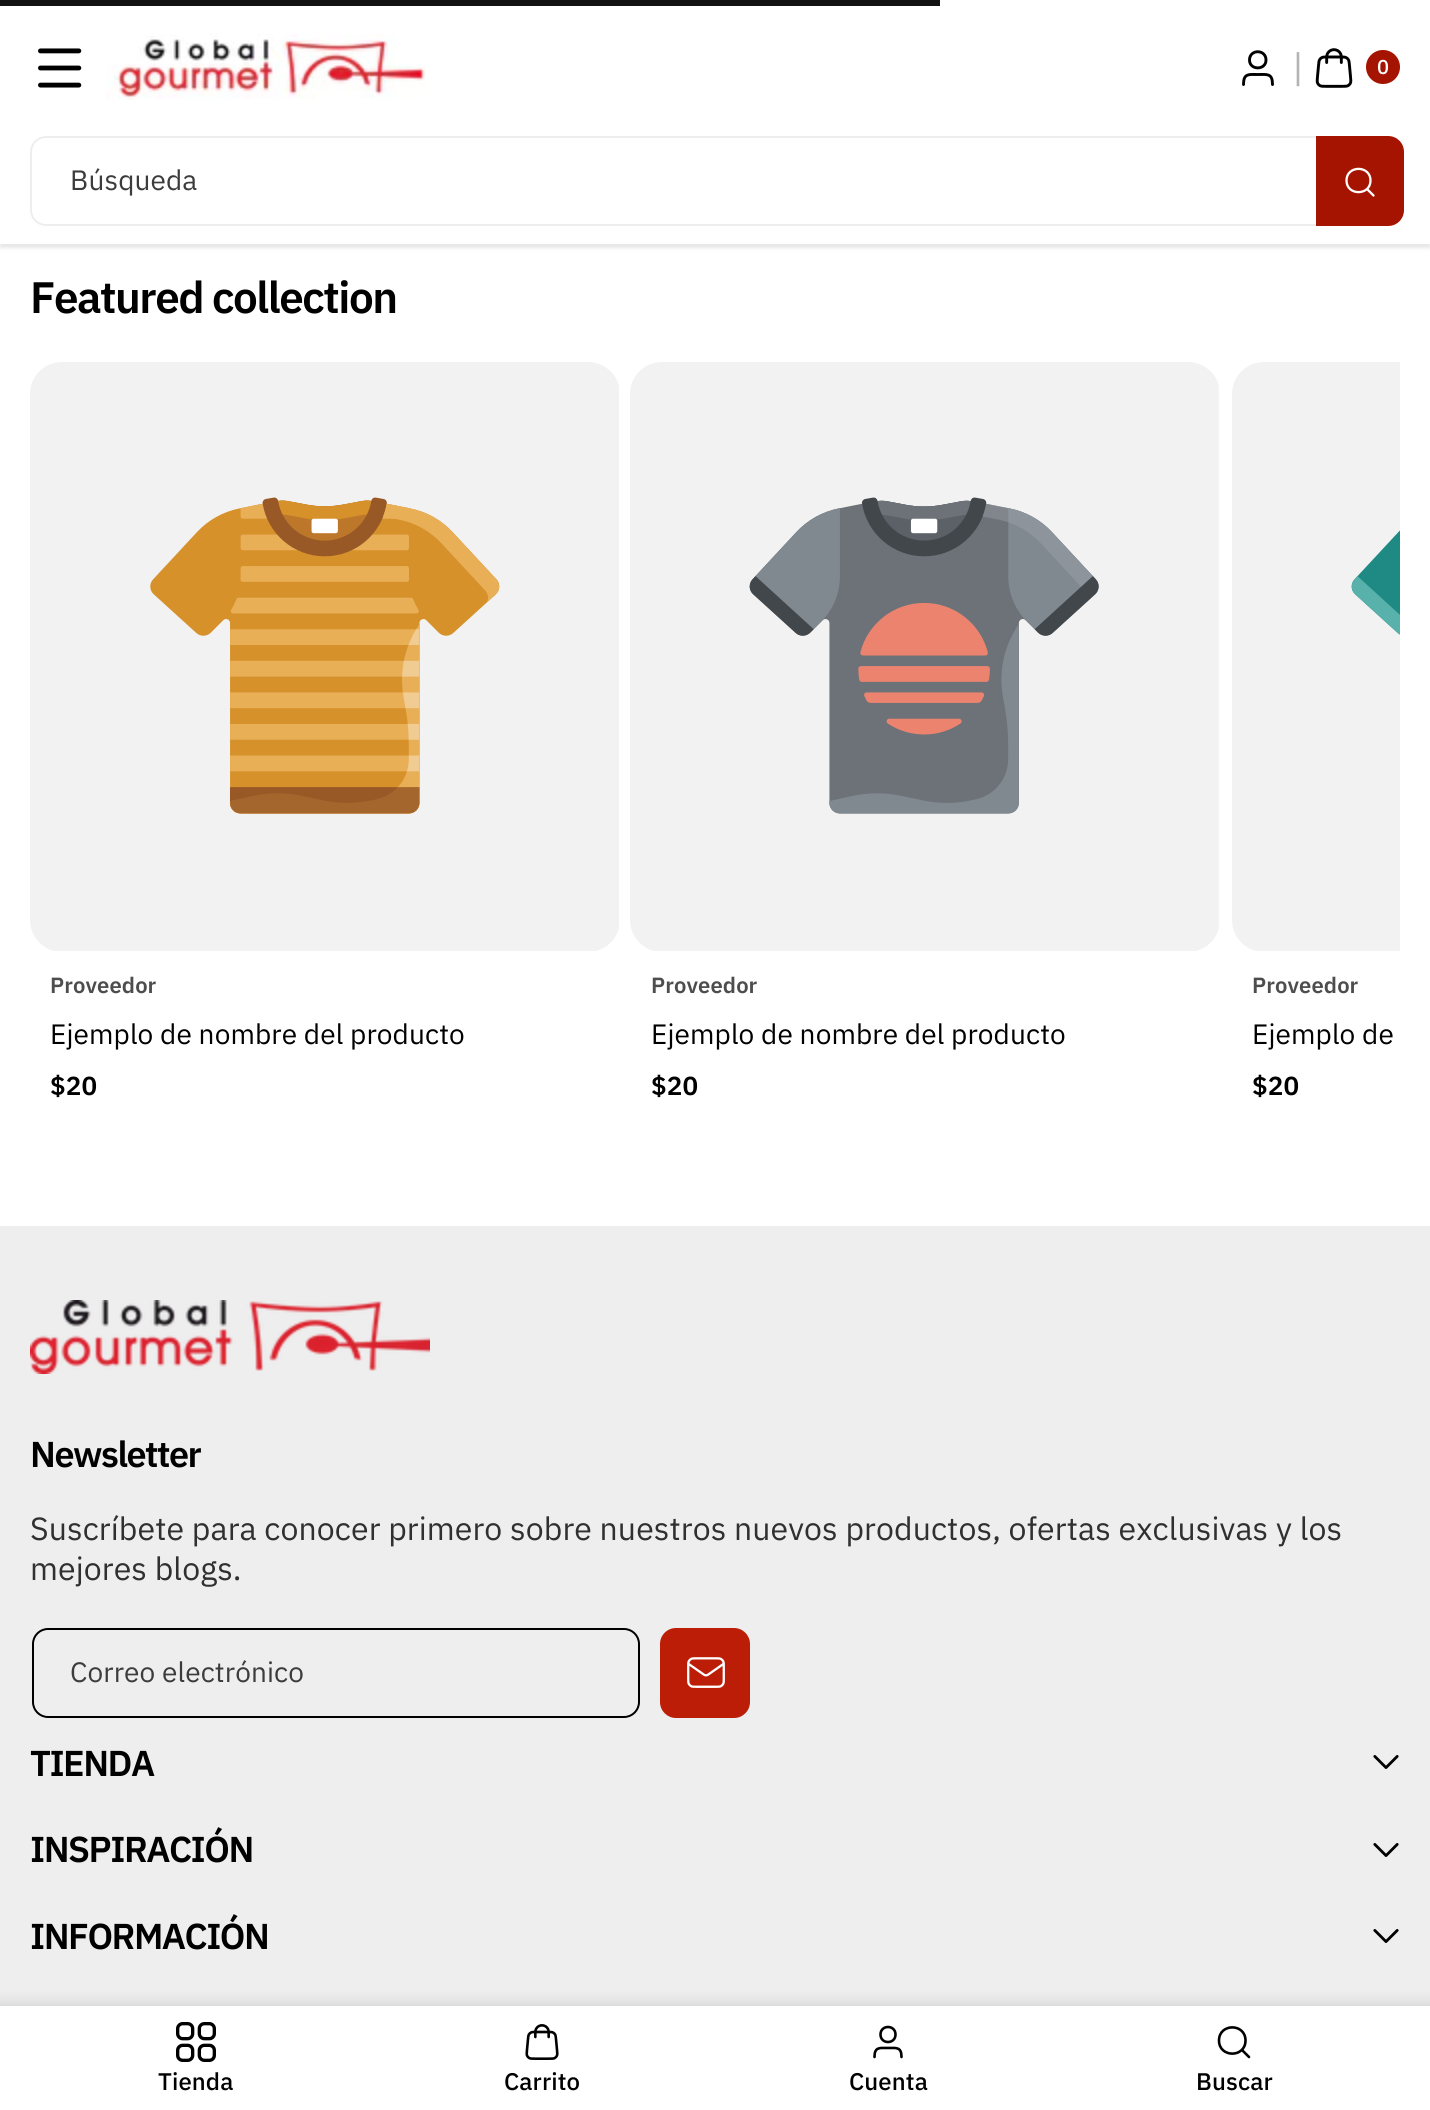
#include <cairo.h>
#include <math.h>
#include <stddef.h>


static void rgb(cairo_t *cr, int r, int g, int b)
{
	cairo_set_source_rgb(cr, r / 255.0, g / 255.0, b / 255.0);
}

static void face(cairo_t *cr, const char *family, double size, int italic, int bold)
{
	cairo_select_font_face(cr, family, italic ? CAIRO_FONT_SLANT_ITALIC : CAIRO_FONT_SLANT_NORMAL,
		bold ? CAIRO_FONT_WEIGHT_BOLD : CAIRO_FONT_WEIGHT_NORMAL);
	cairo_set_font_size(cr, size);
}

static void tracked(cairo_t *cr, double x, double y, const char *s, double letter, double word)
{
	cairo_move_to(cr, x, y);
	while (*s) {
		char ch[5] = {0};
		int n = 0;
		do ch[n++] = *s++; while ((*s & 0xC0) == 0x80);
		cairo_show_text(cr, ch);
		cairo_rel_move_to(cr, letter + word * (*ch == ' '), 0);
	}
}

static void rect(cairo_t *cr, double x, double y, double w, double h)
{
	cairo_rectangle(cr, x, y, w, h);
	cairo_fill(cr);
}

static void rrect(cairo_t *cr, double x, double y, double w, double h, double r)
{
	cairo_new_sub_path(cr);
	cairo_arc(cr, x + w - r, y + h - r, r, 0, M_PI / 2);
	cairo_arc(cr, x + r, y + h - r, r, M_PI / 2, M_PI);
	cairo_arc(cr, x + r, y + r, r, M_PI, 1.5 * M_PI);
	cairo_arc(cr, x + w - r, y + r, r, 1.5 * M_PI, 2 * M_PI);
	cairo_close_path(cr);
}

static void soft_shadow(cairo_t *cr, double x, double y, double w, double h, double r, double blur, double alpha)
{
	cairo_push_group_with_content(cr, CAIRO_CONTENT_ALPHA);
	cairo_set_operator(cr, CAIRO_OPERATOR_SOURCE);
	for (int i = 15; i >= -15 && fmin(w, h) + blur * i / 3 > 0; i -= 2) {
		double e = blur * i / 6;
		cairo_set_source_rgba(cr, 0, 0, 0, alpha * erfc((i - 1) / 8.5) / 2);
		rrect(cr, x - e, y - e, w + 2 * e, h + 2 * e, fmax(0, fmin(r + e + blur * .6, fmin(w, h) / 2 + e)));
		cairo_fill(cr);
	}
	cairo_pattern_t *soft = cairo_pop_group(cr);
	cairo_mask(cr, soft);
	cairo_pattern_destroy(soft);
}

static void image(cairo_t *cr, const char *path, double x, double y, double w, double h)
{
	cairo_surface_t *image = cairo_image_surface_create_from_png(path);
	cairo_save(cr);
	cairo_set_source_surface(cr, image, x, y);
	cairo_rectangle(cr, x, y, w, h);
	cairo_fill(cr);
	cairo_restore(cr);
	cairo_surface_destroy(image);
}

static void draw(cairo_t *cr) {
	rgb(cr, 255, 255, 255);
	cairo_paint(cr);
	rgb(cr, 0, 0, 0);
	soft_shadow(cr, 0, 4, 1430, 244, 0, 2, 0.1);
	rgb(cr, 255, 255, 255);
	rect(cr, 0, 1, 1430, 243);
	rgb(cr, 18, 18, 18);
	rect(cr, 0, 0, 940, 6);
	image(cr, "image0.png", 38, 48, 44, 40);
	image(cr, "image1.png", 106, 34, 320, 66);
	cairo_new_path(cr);
	cairo_move_to(cr, 1272.5, 84.5);
	cairo_curve_to(cr, 1272.5, 73, 1267, 74.5, 1258, 74.5);
	cairo_curve_to(cr, 1249, 74.5, 1243.5, 73, 1243.5, 84.5);
	cairo_move_to(cr, 1266, 60);
	cairo_curve_to(cr, 1266, 70.5, 1249.5, 70.5, 1249.5, 60);
	cairo_curve_to(cr, 1249.5, 49, 1266, 49, 1266, 60);
	cairo_close_path(cr);
	rgb(cr, 0, 0, 0);
	cairo_set_line_width(cr, 2.9);
	cairo_set_line_cap(cr, CAIRO_LINE_CAP_ROUND);
	cairo_set_line_join(cr, CAIRO_LINE_JOIN_ROUND);
	cairo_stroke(cr);
	face(cr, "IBM Plex Sans", 38, 0, 0);
	rgb(cr, 179, 179, 179);
	tracked(cr, 1292, 81, "|", 0.1, 0);
	image(cr, "image2.png", 1315, 48, 38, 40);
	rgb(cr, 165, 20, 0);
	cairo_arc(cr, 1383, 67, 17, 0, 2 * M_PI);
	cairo_fill(cr);
	face(cr, "IBM Plex Sans Medium", 20, 0, 0);
	rgb(cr, 255, 255, 255);
	tracked(cr, 1377, 74, "0", 0.1, 0);
	rrect(cr, 31, 137, 1368, 88, 15);
	rgb(cr, 238, 238, 238);
	cairo_set_line_width(cr, 2);
	cairo_set_line_cap(cr, CAIRO_LINE_CAP_BUTT);
	cairo_set_line_join(cr, CAIRO_LINE_JOIN_MITER);
	cairo_stroke(cr);
	face(cr, "IBM Plex Sans", 28, 0, 0);
	rgb(cr, 60, 60, 60);
	tracked(cr, 70, 190, "Búsqueda", 0.1, 0);
	rgb(cr, 165, 20, 0);
	cairo_new_path(cr);
	cairo_move_to(cr, 1316, 136);
	cairo_line_to(cr, 1388, 136);
	cairo_curve_to(cr, 1397, 136, 1404, 143, 1404, 152);
	cairo_line_to(cr, 1404, 210);
	cairo_curve_to(cr, 1404, 219, 1397, 226, 1388, 226);
	cairo_line_to(cr, 1316, 226);
	cairo_close_path(cr);
	cairo_fill(cr);
	cairo_new_path(cr);
	cairo_move_to(cr, 1373.5, 195.5);
	cairo_line_to(cr, 1367, 189);
	cairo_move_to(cr, 1370.5, 180.5);
	cairo_curve_to(cr, 1370.5, 196, 1346.5, 196, 1346.5, 180.5);
	cairo_curve_to(cr, 1346.5, 165, 1370.5, 165, 1370.5, 180.5);
	cairo_close_path(cr);
	rgb(cr, 255, 255, 255);
	cairo_set_line_width(cr, 2.3);
	cairo_set_line_cap(cr, CAIRO_LINE_CAP_ROUND);
	cairo_set_line_join(cr, CAIRO_LINE_JOIN_ROUND);
	cairo_stroke(cr);
	face(cr, "IBM Plex Sans SemiBold", 44, 0, 0);
	rgb(cr, 0, 0, 0);
	tracked(cr, 30, 313, "Featured collection", -1.5, 0);
	image(cr, "image3.png", 30, 362, 589, 589);
	face(cr, "IBM Plex Sans SemiBold", 22, 0, 0);
	rgb(cr, 77, 77, 77);
	tracked(cr, 50, 993, "Proveedor", 0.1, 0);
	face(cr, "IBM Plex Sans", 28, 0, 0);
	rgb(cr, 0, 0, 0);
	tracked(cr, 50, 1044, "Ejemplo de nombre del producto", 0.1, 0);
	face(cr, "IBM Plex Sans SemiBold", 26, 0, 0);
	tracked(cr, 50, 1095, "$20", 0.1, 0);
	image(cr, "image4.png", 630, 362, 589, 589);
	face(cr, "IBM Plex Sans SemiBold", 22, 0, 0);
	rgb(cr, 77, 77, 77);
	tracked(cr, 651, 993, "Proveedor", 0.1, 0);
	face(cr, "IBM Plex Sans", 28, 0, 0);
	rgb(cr, 0, 0, 0);
	tracked(cr, 651, 1044, "Ejemplo de nombre del producto", 0.1, 0);
	face(cr, "IBM Plex Sans SemiBold", 26, 0, 0);
	tracked(cr, 651, 1095, "$20", 0.1, 0);
	image(cr, "image5.png", 1232, 362, 168, 589);
	face(cr, "IBM Plex Sans SemiBold", 22, 0, 0);
	rgb(cr, 77, 77, 77);
	tracked(cr, 1252, 993, "Proveedor", 0.1, 0);
	face(cr, "IBM Plex Sans", 28, 0, 0);
	rgb(cr, 0, 0, 0);
	tracked(cr, 1252, 1044, "Ejemplo de", 0.1, 0);
	face(cr, "IBM Plex Sans SemiBold", 26, 0, 0);
	tracked(cr, 1252, 1095, "$20", 0.1, 0);
	rgb(cr, 238, 238, 238);
	rect(cr, 0, 1226, 1430, 780);
	image(cr, "image6.png", 30, 1300, 400, 74);
	face(cr, "IBM Plex Sans SemiBold", 36, 0, 0);
	rgb(cr, 0, 0, 0);
	tracked(cr, 30, 1467, "Newsletter", -1.5, 0);
	face(cr, "IBM Plex Sans", 32, 0, 0);
	rgb(cr, 48, 48, 48);
	tracked(cr, 30, 1540, "Suscríbete para conocer primero sobre nuestros nuevos productos, ofertas exclusivas y los", 0.1, 0);
	tracked(cr, 30, 1580, "mejores blogs.", 0.1, 0);
	rrect(cr, 33, 1629, 606, 88, 15);
	rgb(cr, 0, 0, 0);
	cairo_set_line_width(cr, 2);
	cairo_set_line_cap(cr, CAIRO_LINE_CAP_BUTT);
	cairo_set_line_join(cr, CAIRO_LINE_JOIN_MITER);
	cairo_stroke(cr);
	rgb(cr, 188, 29, 7);
	rrect(cr, 660, 1628, 90, 90, 16);
	cairo_fill(cr);
	image(cr, "image7.png", 687, 1657, 38, 31);
	face(cr, "IBM Plex Sans", 28, 0, 0);
	rgb(cr, 60, 60, 60);
	tracked(cr, 70, 1682, "Correo electrónico", 0.1, 0);
	face(cr, "IBM Plex Sans SemiBold", 36, 0, 0);
	rgb(cr, 0, 0, 0);
	tracked(cr, 30, 1776, "TIENDA", -1.5, 0);
	image(cr, "image8.png", 1373, 1755, 26, 14);
	tracked(cr, 30, 1862, "INSPIRACIÓN", -1.5, 0);
	image(cr, "image8.png", 1373, 1843, 26, 14);
	tracked(cr, 30, 1949, "INFORMACIÓN", -1.5, 0);
	image(cr, "image8.png", 1373, 1929, 26, 14);
	rgb(cr, 0, 0, 0);
	soft_shadow(cr, -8, 2002, 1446, 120, 0, 6, 0.1);
	rgb(cr, 255, 255, 255);
	rect(cr, 0, 2006, 1430, 104);
	image(cr, "image9.png", 176, 2022, 40, 40);
	face(cr, "IBM Plex Sans Medium", 24, 0, 0);
	rgb(cr, 0, 0, 0);
	tracked(cr, 158, 2090, "Tienda", 0.1, 0);
	image(cr, "image10.png", 525, 2024, 34, 36);
	tracked(cr, 504, 2090, "Carrito", 0.1, 0);
	cairo_new_path(cr);
	cairo_move_to(cr, 901.5, 2057);
	cairo_curve_to(cr, 901.5, 2046.5, 896, 2048, 888, 2048);
	cairo_curve_to(cr, 880, 2048, 874.5, 2046.5, 874.5, 2057);
	cairo_move_to(cr, 895.5, 2034.5);
	cairo_curve_to(cr, 895.5, 2044.5, 880.5, 2044.5, 880.5, 2034.5);
	cairo_curve_to(cr, 880.5, 2024.5, 895.5, 2024.5, 895.5, 2034.5);
	cairo_close_path(cr);
	cairo_set_line_width(cr, 2.6);
	cairo_set_line_cap(cr, CAIRO_LINE_CAP_ROUND);
	cairo_set_line_join(cr, CAIRO_LINE_JOIN_ROUND);
	cairo_stroke(cr);
	tracked(cr, 849, 2090, "Cuenta", 0.1, 0);
	cairo_new_path(cr);
	cairo_move_to(cr, 1249, 2057);
	cairo_line_to(cr, 1242, 2050);
	cairo_move_to(cr, 1245.5, 2040.5);
	cairo_curve_to(cr, 1245.5, 2058, 1219, 2058, 1219, 2040.5);
	cairo_curve_to(cr, 1219, 2023, 1245.5, 2023, 1245.5, 2040.5);
	cairo_close_path(cr);
	cairo_stroke(cr);
	tracked(cr, 1196, 2090, "Buscar", 0.1, 0);
}

int main(void) {
	cairo_surface_t *surface = cairo_image_surface_create(CAIRO_FORMAT_RGB24, 1430, 2110);
	cairo_t *cr = cairo_create(surface);
	cairo_font_options_t *options = cairo_font_options_create();
	cairo_font_options_set_hint_metrics(options, CAIRO_HINT_METRICS_OFF);
	cairo_font_options_set_hint_style(options, CAIRO_HINT_STYLE_NONE);
	cairo_set_font_options(cr, options);
	cairo_set_miter_limit(cr, 4);
	draw(cr);
	cairo_surface_write_to_png(surface, "render.png");
	cairo_font_options_destroy(options);
	cairo_destroy(cr);
	cairo_surface_destroy(surface);
	return 0;
}
